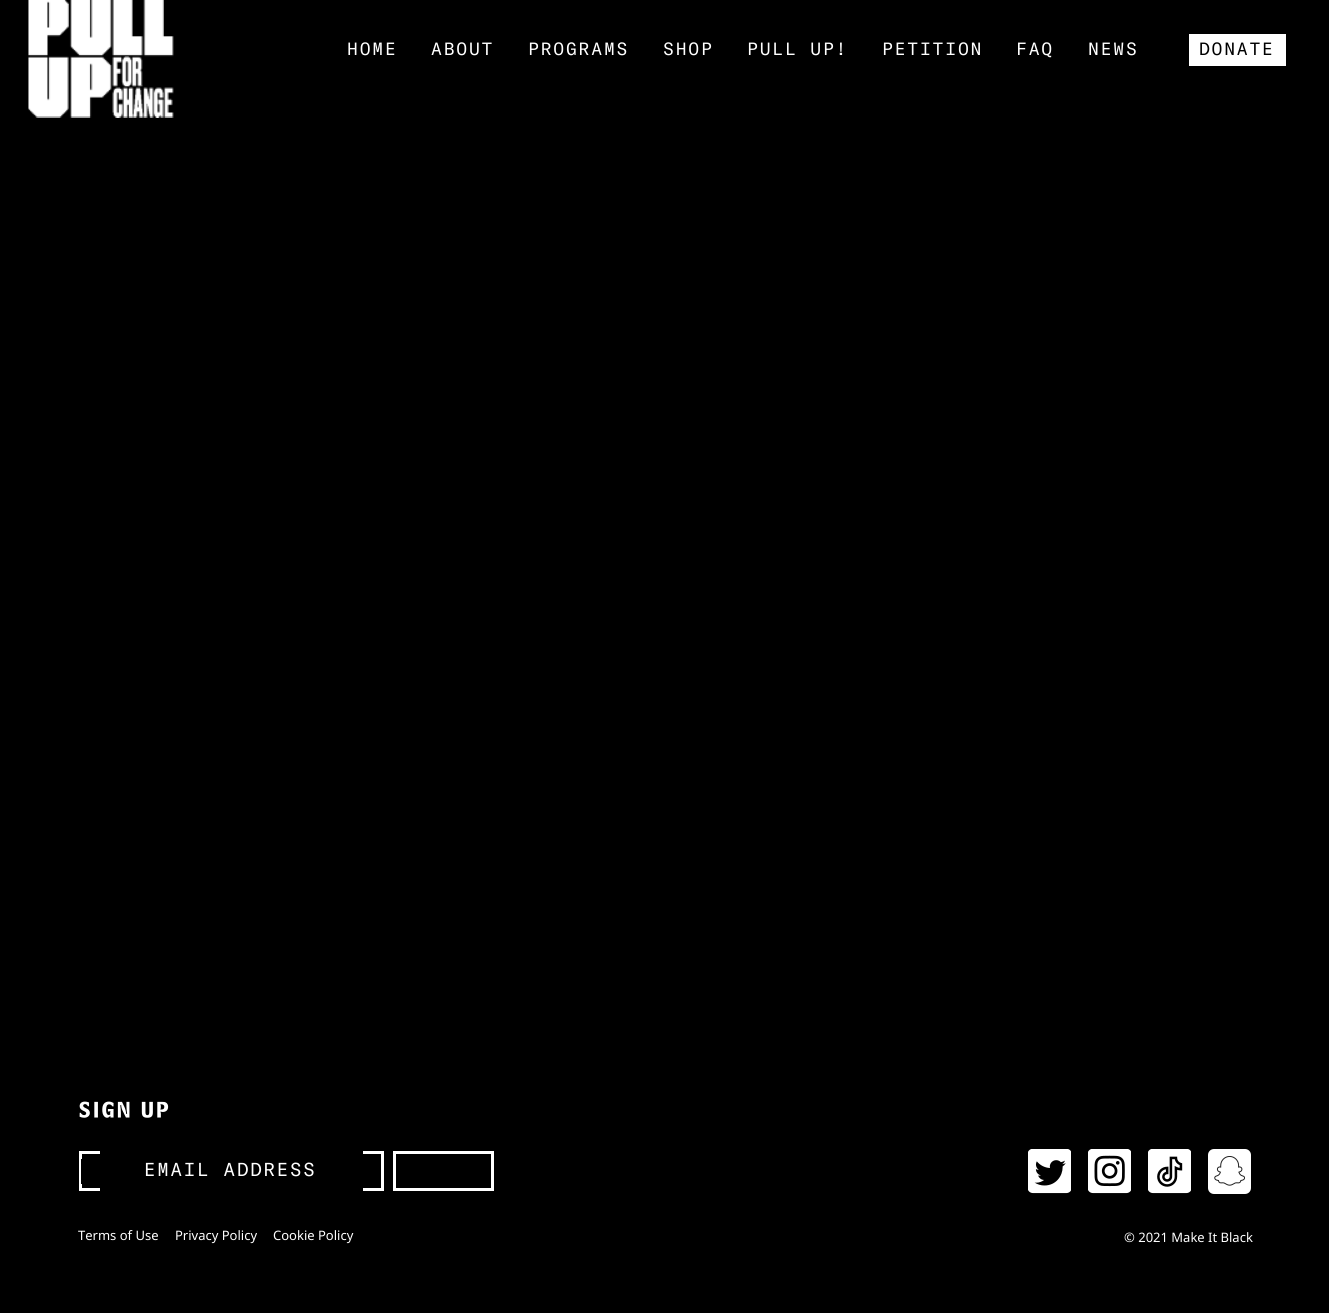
#include <cairo.h>
#include <math.h>
#include <stddef.h>


static void rgb(cairo_t *cr, int r, int g, int b)
{
	cairo_set_source_rgb(cr, r / 255.0, g / 255.0, b / 255.0);
}

static void face(cairo_t *cr, const char *family, double size, int italic, int bold)
{
	cairo_select_font_face(cr, family, italic ? CAIRO_FONT_SLANT_ITALIC : CAIRO_FONT_SLANT_NORMAL,
		bold ? CAIRO_FONT_WEIGHT_BOLD : CAIRO_FONT_WEIGHT_NORMAL);
	cairo_set_font_size(cr, size);
}

static void label(cairo_t *cr, double x, double y, const char *s)
{
	cairo_move_to(cr, x, y);
	cairo_show_text(cr, s);
}

static void tracked(cairo_t *cr, double x, double y, const char *s, double letter, double word)
{
	cairo_move_to(cr, x, y);
	while (*s) {
		char ch[5] = {0};
		int n = 0;
		do ch[n++] = *s++; while ((*s & 0xC0) == 0x80);
		cairo_show_text(cr, ch);
		cairo_rel_move_to(cr, letter + word * (*ch == ' '), 0);
	}
}

static void rect(cairo_t *cr, double x, double y, double w, double h)
{
	cairo_rectangle(cr, x, y, w, h);
	cairo_fill(cr);
}

static void rrect(cairo_t *cr, double x, double y, double w, double h, double r)
{
	cairo_new_sub_path(cr);
	cairo_arc(cr, x + w - r, y + h - r, r, 0, M_PI / 2);
	cairo_arc(cr, x + r, y + h - r, r, M_PI / 2, M_PI);
	cairo_arc(cr, x + r, y + r, r, M_PI, 1.5 * M_PI);
	cairo_arc(cr, x + w - r, y + r, r, 1.5 * M_PI, 2 * M_PI);
	cairo_close_path(cr);
}

static void image(cairo_t *cr, const char *path, double x, double y, double w, double h)
{
	cairo_surface_t *image = cairo_image_surface_create_from_png(path);
	cairo_save(cr);
	cairo_set_source_surface(cr, image, x, y);
	cairo_rectangle(cr, x, y, w, h);
	cairo_fill(cr);
	cairo_restore(cr);
	cairo_surface_destroy(image);
}

static void draw(cairo_t *cr) {
	rgb(cr, 0, 0, 0);
	cairo_paint(cr);
	image(cr, "image0.png", 28, 0, 146, 118);
	face(cr, "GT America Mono", 17.5, 0, 0);
	rgb(cr, 255, 255, 255);
	tracked(cr, 347, 55, "HOME", 1.8, 0);
	tracked(cr, 431, 55, "ABOUT", 1.8, 0);
	tracked(cr, 528, 55, "PROGRAMS", 1.8, 0);
	tracked(cr, 663, 55, "SHOP", 1.8, 0);
	tracked(cr, 747, 55, "PULL UP!", 1.8, 0);
	tracked(cr, 882, 55, "PETITION", 1.8, 0);
	tracked(cr, 1016, 55, "FAQ", 1.8, 0);
	tracked(cr, 1088, 55, "NEWS", 1.8, 0);
	rect(cr, 1189, 34, 97, 32);
	rgb(cr, 0, 0, 0);
	tracked(cr, 1199, 55, "DONATE", 1.75, 0);
	image(cr, "image1.png", 79, 1101, 90, 17);
	cairo_rectangle(cr, 80.5, 1152.5, 302, 37);
	rgb(cr, 255, 255, 255);
	cairo_set_line_width(cr, 3);
	cairo_stroke(cr);
	rgb(cr, 0, 0, 0);
	rect(cr, 100, 1151, 263, 40);
	rect(cr, 81, 1159, 1, 25);
	face(cr, "GT America Mono", 18.5, 0, 0);
	rgb(cr, 255, 255, 255);
	tracked(cr, 144, 1176, "EMAIL ADDRESS", 1.8, 0);
	cairo_rectangle(cr, 394.5, 1152.5, 98, 37);
	cairo_stroke(cr);
	face(cr, "Noto Sans", 13, 0, 0);
	label(cr, 78, 1240, "Terms of Use");
	label(cr, 175, 1240, "Privacy Policy");
	label(cr, 273, 1240, "Cookie Policy");
	image(cr, "image2.png", 1028, 1149, 43, 45);
	image(cr, "image3.png", 1088, 1149, 43, 45);
	image(cr, "image4.png", 1148, 1149, 43, 45);
	rrect(cr, 1208, 1149, 43, 45, 6);
	cairo_fill(cr);
	image(cr, "image5.png", 1214, 1156, 31, 30);
	label(cr, 1124, 1242, "© 2021 Make It Black");
}

int main(void) {
	cairo_surface_t *surface = cairo_image_surface_create(CAIRO_FORMAT_RGB24, 1329, 1313);
	cairo_t *cr = cairo_create(surface);
	cairo_font_options_t *options = cairo_font_options_create();
	cairo_font_options_set_hint_metrics(options, CAIRO_HINT_METRICS_OFF);
	cairo_font_options_set_hint_style(options, CAIRO_HINT_STYLE_NONE);
	cairo_set_font_options(cr, options);
	cairo_set_miter_limit(cr, 4);
	draw(cr);
	cairo_surface_write_to_png(surface, "render.png");
	cairo_font_options_destroy(options);
	cairo_destroy(cr);
	cairo_surface_destroy(surface);
	return 0;
}
